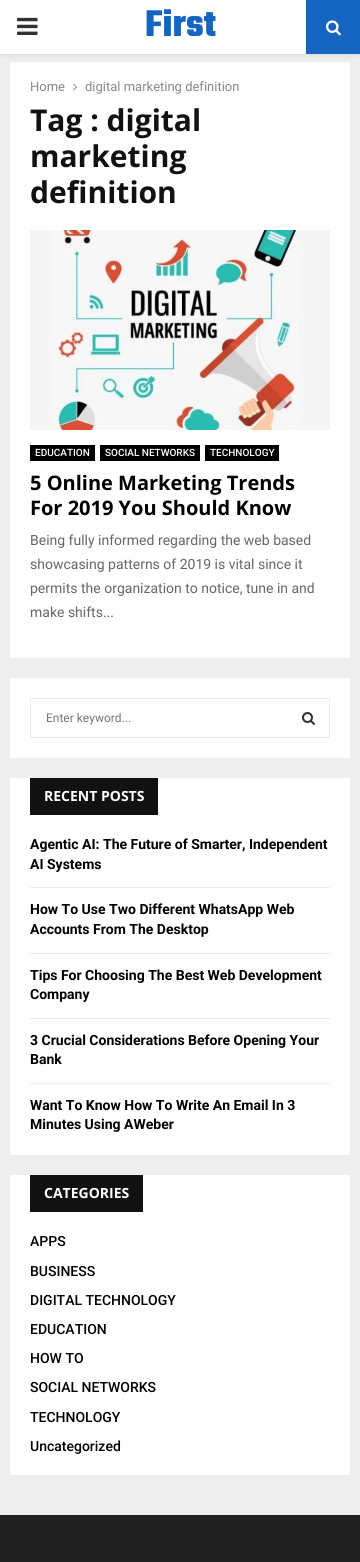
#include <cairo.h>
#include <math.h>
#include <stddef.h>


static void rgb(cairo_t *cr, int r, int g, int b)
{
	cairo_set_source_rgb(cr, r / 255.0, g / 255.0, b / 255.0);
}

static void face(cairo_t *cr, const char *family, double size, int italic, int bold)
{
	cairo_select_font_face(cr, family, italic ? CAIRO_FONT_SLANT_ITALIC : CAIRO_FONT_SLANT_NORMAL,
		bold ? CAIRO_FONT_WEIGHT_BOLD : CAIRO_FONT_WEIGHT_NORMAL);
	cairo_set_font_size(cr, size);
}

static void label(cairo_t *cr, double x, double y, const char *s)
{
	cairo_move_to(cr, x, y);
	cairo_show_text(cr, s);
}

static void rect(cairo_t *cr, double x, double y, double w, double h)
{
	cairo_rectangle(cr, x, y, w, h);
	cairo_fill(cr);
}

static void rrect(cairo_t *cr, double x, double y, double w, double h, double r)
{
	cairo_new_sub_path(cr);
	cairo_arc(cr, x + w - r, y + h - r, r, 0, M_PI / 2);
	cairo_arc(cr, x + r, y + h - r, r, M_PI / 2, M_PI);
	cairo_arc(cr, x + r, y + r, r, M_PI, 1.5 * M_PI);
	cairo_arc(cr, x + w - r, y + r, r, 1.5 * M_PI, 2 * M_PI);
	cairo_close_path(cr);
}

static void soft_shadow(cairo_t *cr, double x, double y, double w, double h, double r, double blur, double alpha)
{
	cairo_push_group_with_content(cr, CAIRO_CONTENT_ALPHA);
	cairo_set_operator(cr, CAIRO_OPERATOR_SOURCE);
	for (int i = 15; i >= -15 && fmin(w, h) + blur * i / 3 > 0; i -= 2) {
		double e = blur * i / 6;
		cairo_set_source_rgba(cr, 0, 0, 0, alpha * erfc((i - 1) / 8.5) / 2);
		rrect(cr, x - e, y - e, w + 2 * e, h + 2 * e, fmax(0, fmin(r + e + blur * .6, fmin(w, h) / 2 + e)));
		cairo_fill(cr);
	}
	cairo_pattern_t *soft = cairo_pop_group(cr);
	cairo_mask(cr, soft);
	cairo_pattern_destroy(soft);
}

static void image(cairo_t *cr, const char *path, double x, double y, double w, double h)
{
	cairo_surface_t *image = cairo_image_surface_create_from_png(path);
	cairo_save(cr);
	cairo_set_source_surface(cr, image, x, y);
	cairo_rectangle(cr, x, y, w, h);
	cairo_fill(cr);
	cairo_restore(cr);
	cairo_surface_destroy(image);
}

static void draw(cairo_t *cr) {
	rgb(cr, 238, 238, 238);
	cairo_paint(cr);
	rgb(cr, 255, 255, 255);
	rect(cr, 10, 62, 340, 596);
	rgb(cr, 190, 190, 190);
	soft_shadow(cr, 0, 1, 360, 54, 0, 2.5, 0.46);
	rgb(cr, 255, 255, 255);
	rect(cr, 0, 0, 306, 54);
	image(cr, "image0.png", 17, 17, 21, 18);
	face(cr, "Teko", 40, 0, 1);
	rgb(cr, 21, 101, 192);
	label(cr, 145, 36, "First");
	rect(cr, 306, 0, 54, 54);
	image(cr, "image1.png", 326, 20, 15, 16);
	face(cr, "Roboto", 13, 0, 0);
	rgb(cr, 136, 136, 136);
	label(cr, 30, 91, "Home");
	image(cr, "image2.png", 73, 83, 4, 8);
	label(cr, 85, 91, "digital marketing definition");
	face(cr, "Open Sans", 30, 0, 1);
	rgb(cr, 17, 17, 17);
	label(cr, 30, 131, "Tag : digital");
	label(cr, 30, 167, "marketing");
	label(cr, 30, 203, "definition");
	rgb(cr, 245, 245, 245);
	rect(cr, 30, 230, 300, 200);
	image(cr, "image3.png", 52, 230, 246, 200);
	rgb(cr, 0, 0, 0);
	rect(cr, 30, 445, 65, 16);
	face(cr, "Roboto Medium", 10, 0, 0);
	rgb(cr, 255, 255, 255);
	label(cr, 35, 456, "EDUCATION");
	rgb(cr, 0, 0, 0);
	rect(cr, 100, 445, 100, 16);
	rgb(cr, 255, 255, 255);
	label(cr, 105, 456, "SOCIAL NETWORKS");
	rgb(cr, 0, 0, 0);
	rect(cr, 205, 445, 74, 16);
	rgb(cr, 255, 255, 255);
	label(cr, 210, 456, "TECHNOLOGY");
	face(cr, "Open Sans", 20, 0, 1);
	rgb(cr, 0, 0, 0);
	label(cr, 30, 490, "5 Online Marketing Trends");
	label(cr, 30, 515, "For 2019 You Should Know");
	face(cr, "Roboto", 14, 0, 0);
	rgb(cr, 102, 102, 102);
	label(cr, 30, 545, "Being fully informed regarding the web based");
	label(cr, 30, 569, "showcasing patterns of 2019 is vital since it");
	label(cr, 30, 593, "permits the organization to notice, tune in and");
	label(cr, 30, 617, "make shifts...");
	rgb(cr, 255, 255, 255);
	rect(cr, 10, 678, 340, 80);
	cairo_rectangle(cr, 30.5, 698.5, 299, 39);
	rgb(cr, 236, 236, 236);
	cairo_set_line_width(cr, 1);
	cairo_stroke(cr);
	face(cr, "Roboto", 12, 0, 0);
	rgb(cr, 117, 117, 117);
	label(cr, 46, 722, "Enter keyword...");
	image(cr, "image4.png", 302, 712, 13, 13);
	rgb(cr, 255, 255, 255);
	rect(cr, 10, 778, 340, 377);
	rgb(cr, 17, 17, 17);
	rect(cr, 30, 778, 128, 37);
	face(cr, "Open Sans", 14, 0, 1);
	rgb(cr, 255, 255, 255);
	label(cr, 44, 801, "RECENT POSTS");
	rgb(cr, 236, 236, 236);
	rect(cr, 30, 887, 300, 1);
	face(cr, "Roboto", 14, 0, 1);
	rgb(cr, 0, 0, 0);
	label(cr, 30, 849, "Agentic AI: The Future of Smarter, Independent");
	label(cr, 30, 869, "AI Systems");
	rgb(cr, 236, 236, 236);
	rect(cr, 30, 953, 300, 1);
	rgb(cr, 0, 0, 0);
	label(cr, 30, 914, "How To Use Two Different WhatsApp Web");
	label(cr, 30, 934, "Accounts From The Desktop");
	rgb(cr, 236, 236, 236);
	rect(cr, 30, 1018, 300, 1);
	rgb(cr, 0, 0, 0);
	label(cr, 30, 980, "Tips For Choosing The Best Web Development");
	label(cr, 30, 999, "Company");
	rgb(cr, 236, 236, 236);
	rect(cr, 30, 1083, 300, 1);
	rgb(cr, 0, 0, 0);
	label(cr, 30, 1045, "3 Crucial Considerations Before Opening Your");
	label(cr, 30, 1064, "Bank");
	label(cr, 30, 1110, "Want To Know How To Write An Email In 3");
	label(cr, 30, 1129, "Minutes Using AWeber");
	rgb(cr, 255, 255, 255);
	rect(cr, 10, 1175, 340, 300);
	rgb(cr, 17, 17, 17);
	rect(cr, 30, 1175, 113, 37);
	face(cr, "Open Sans", 14, 0, 1);
	rgb(cr, 255, 255, 255);
	label(cr, 44, 1198, "CATEGORIES");
	face(cr, "Roboto Medium", 14, 0, 0);
	rgb(cr, 0, 0, 0);
	label(cr, 30, 1246, "APPS");
	label(cr, 30, 1276, "BUSINESS");
	label(cr, 30, 1305, "DIGITAL TECHNOLOGY");
	label(cr, 30, 1334, "EDUCATION");
	label(cr, 30, 1363, "HOW TO");
	label(cr, 30, 1392, "SOCIAL NETWORKS");
	label(cr, 30, 1422, "TECHNOLOGY");
	label(cr, 30, 1451, "Uncategorized");
	rgb(cr, 33, 33, 33);
	rect(cr, 0, 1515, 360, 47);
}

int main(void) {
	cairo_surface_t *surface = cairo_image_surface_create(CAIRO_FORMAT_RGB24, 360, 1562);
	cairo_t *cr = cairo_create(surface);
	cairo_font_options_t *options = cairo_font_options_create();
	cairo_font_options_set_hint_metrics(options, CAIRO_HINT_METRICS_OFF);
	cairo_font_options_set_hint_style(options, CAIRO_HINT_STYLE_NONE);
	cairo_set_font_options(cr, options);
	cairo_set_miter_limit(cr, 4);
	draw(cr);
	cairo_surface_write_to_png(surface, "render.png");
	cairo_font_options_destroy(options);
	cairo_destroy(cr);
	cairo_surface_destroy(surface);
	return 0;
}
